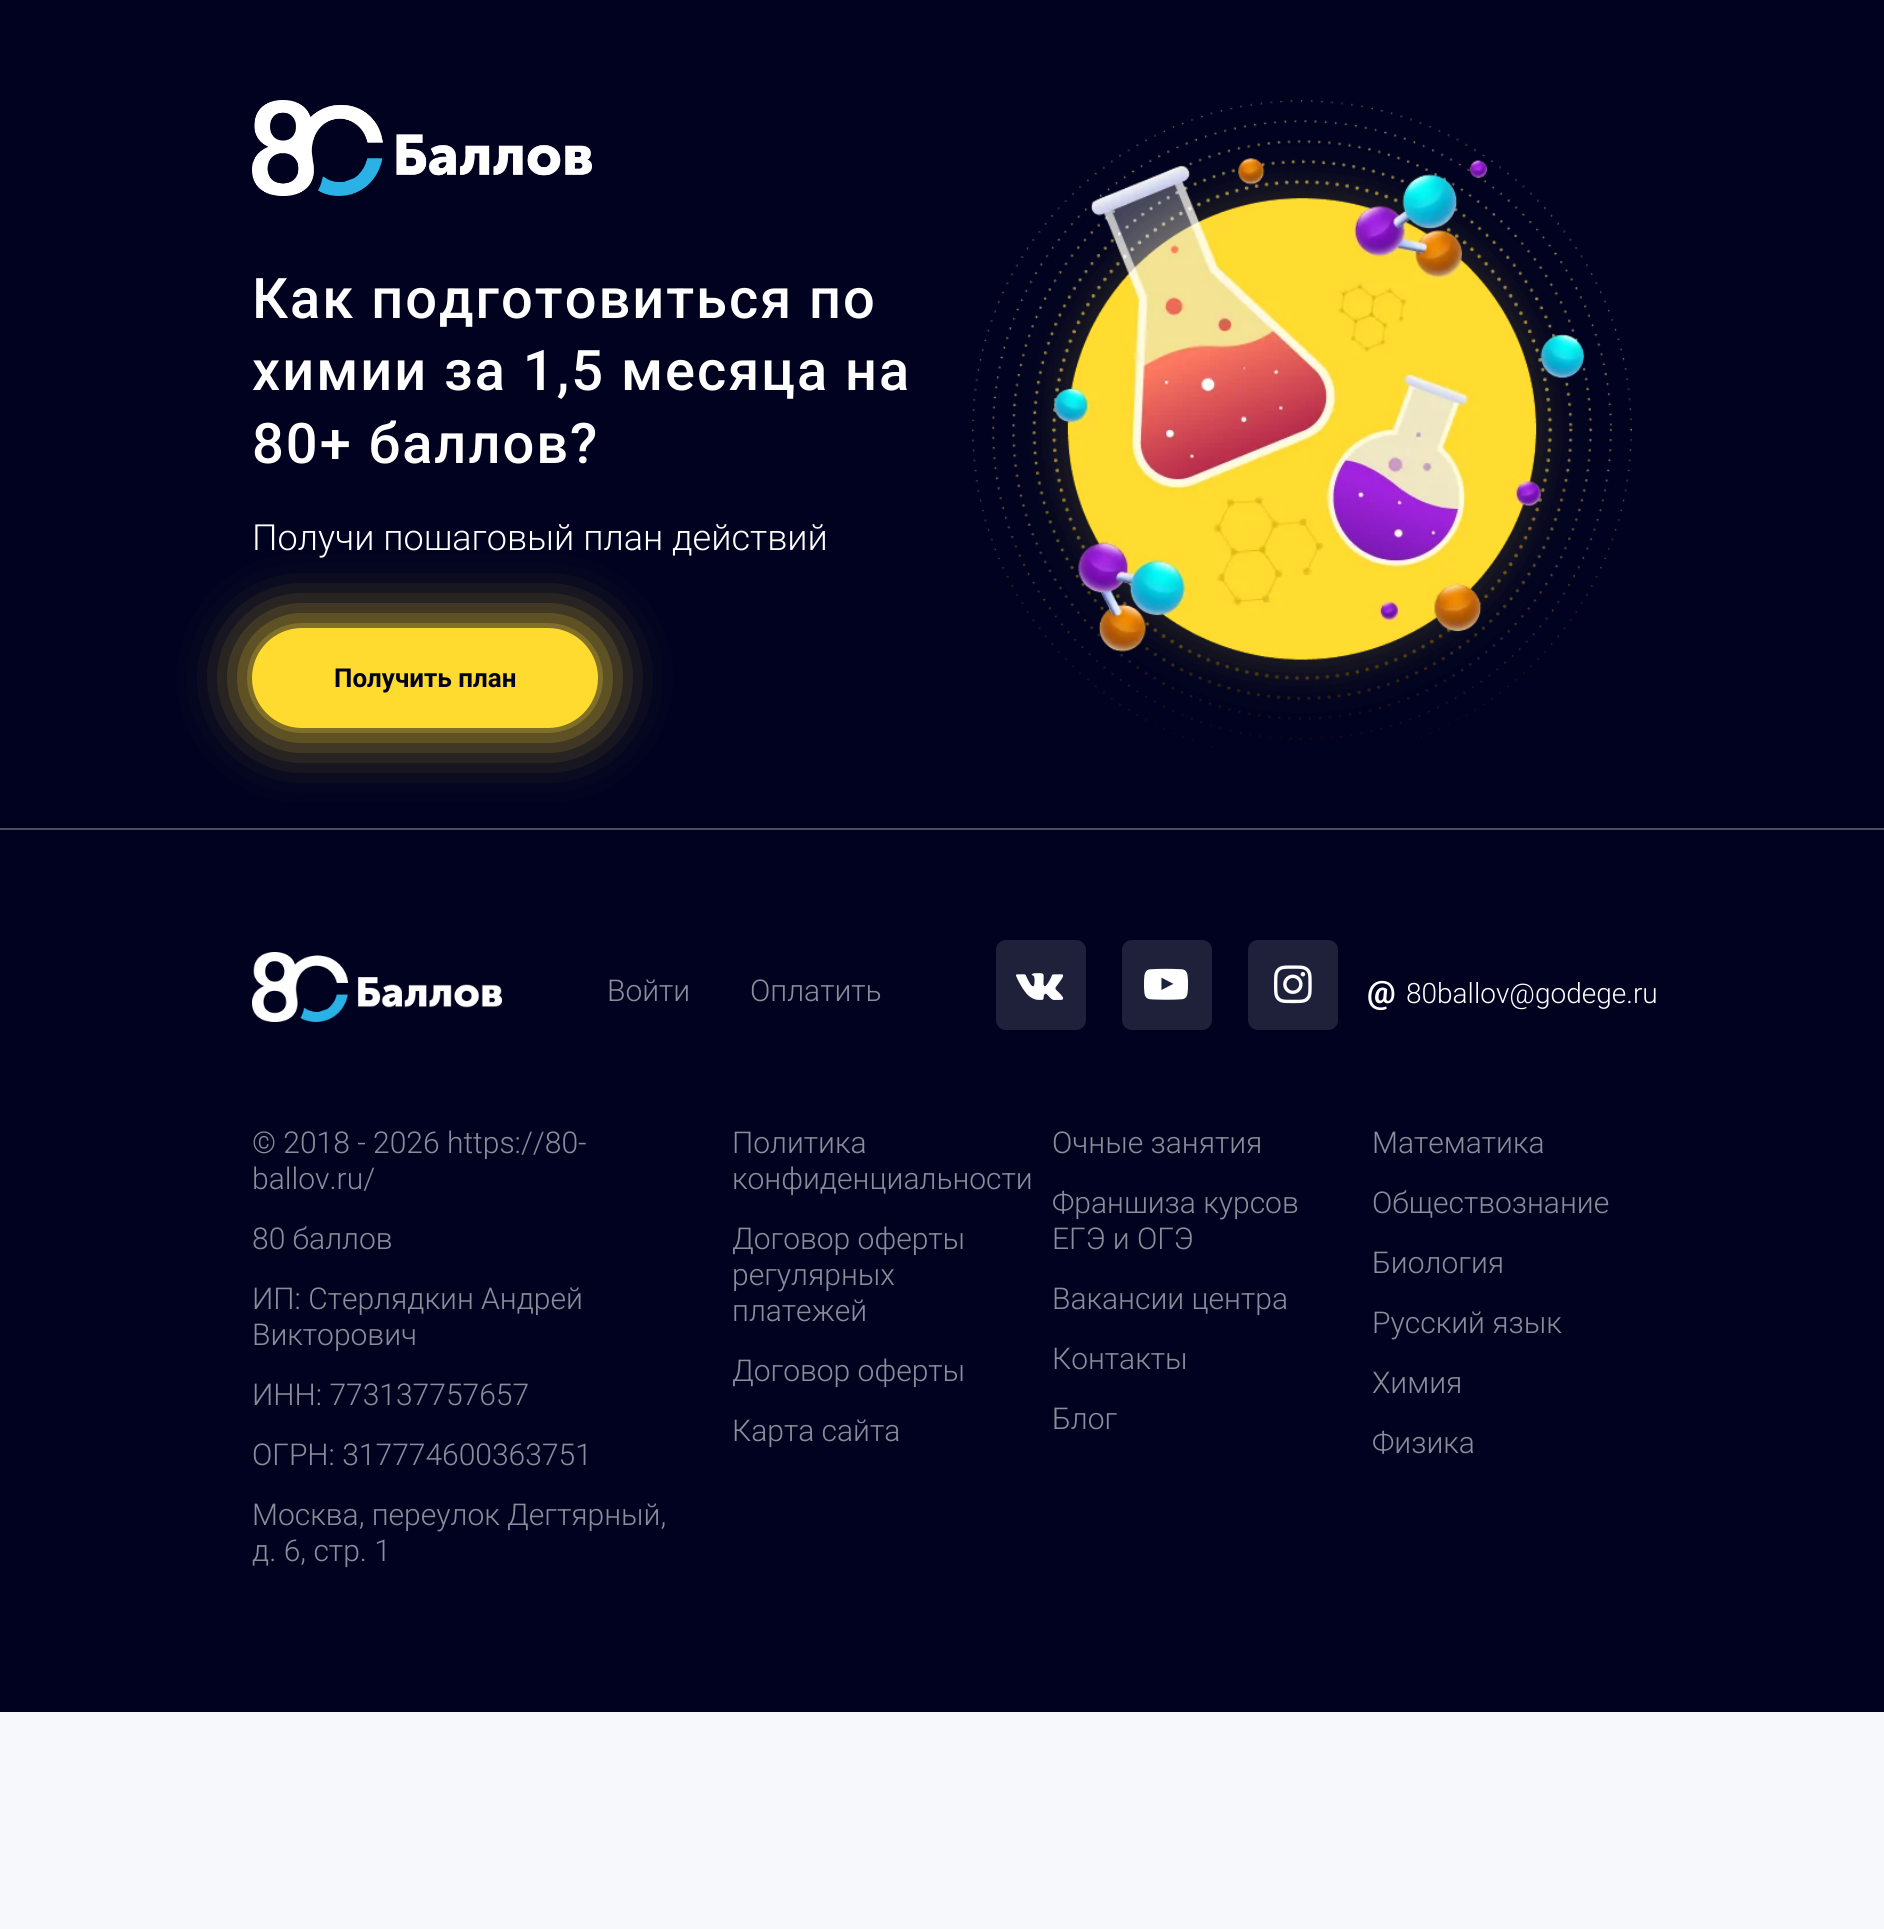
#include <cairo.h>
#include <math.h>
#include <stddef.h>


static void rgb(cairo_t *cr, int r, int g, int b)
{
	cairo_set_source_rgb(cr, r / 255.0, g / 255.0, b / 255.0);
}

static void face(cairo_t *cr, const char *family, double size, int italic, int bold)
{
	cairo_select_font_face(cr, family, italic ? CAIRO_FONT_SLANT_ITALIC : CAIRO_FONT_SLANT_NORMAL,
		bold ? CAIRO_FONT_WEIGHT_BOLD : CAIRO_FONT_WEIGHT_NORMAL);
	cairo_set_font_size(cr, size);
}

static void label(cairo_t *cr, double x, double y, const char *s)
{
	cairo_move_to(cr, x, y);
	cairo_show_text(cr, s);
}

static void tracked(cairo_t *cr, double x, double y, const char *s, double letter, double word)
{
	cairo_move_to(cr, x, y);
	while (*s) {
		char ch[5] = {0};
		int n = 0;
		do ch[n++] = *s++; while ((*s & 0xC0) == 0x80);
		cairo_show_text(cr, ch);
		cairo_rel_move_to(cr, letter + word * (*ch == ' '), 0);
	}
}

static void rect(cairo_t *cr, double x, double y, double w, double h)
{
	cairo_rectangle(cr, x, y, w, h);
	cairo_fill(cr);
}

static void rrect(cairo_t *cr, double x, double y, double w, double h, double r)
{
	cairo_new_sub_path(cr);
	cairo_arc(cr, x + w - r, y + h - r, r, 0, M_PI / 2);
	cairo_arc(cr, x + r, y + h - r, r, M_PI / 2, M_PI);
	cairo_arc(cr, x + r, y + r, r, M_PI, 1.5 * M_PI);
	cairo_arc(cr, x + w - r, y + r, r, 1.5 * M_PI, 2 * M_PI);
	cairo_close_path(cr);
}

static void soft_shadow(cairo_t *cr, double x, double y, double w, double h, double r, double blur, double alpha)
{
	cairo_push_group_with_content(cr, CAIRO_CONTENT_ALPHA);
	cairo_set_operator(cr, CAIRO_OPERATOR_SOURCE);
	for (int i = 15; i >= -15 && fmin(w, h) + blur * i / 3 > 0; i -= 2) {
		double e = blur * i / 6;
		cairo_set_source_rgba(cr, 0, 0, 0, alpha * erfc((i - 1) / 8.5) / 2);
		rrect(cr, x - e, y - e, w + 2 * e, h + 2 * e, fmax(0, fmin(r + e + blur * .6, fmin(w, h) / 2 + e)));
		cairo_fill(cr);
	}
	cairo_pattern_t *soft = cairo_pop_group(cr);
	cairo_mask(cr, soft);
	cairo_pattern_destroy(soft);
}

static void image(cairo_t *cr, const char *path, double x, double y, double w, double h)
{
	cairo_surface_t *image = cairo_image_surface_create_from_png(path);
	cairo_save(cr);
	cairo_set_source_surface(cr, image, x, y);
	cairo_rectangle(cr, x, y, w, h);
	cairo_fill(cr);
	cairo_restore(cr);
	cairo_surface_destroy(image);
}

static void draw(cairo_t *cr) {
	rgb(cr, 247, 248, 252);
	cairo_paint(cr);
	rgb(cr, 0, 2, 32);
	rect(cr, 0, 0, 1884, 828);
	rgb(cr, 78, 78, 99);
	rect(cr, 0, 828, 1884, 2);
	image(cr, "image0.png", 252, 100, 340, 96);
	face(cr, "Roboto Medium", 56, 0, 0);
	rgb(cr, 255, 255, 255);
	tracked(cr, 252, 318, "Как подготовиться по", 2, 0);
	tracked(cr, 252, 390, "химии за 1,5 месяца на", 2, 0);
	tracked(cr, 252, 463, "80+ баллов?", 2, 0);
	face(cr, "Roboto Light", 36, 0, 0);
	label(cr, 252, 550, "Получи пошаговый план действий");
	rgb(cr, 255, 219, 47);
	soft_shadow(cr, 252, 628, 346, 100, 50, 30, 1);
	rgb(cr, 255, 219, 47);
	rrect(cr, 252, 628, 346, 100, 50);
	cairo_fill(cr);
	face(cr, "Roboto", 26, 0, 1);
	rgb(cr, 0, 2, 32);
	label(cr, 334, 687, "Получить план");
	image(cr, "image1.png", 972, 100, 660, 660);
	rect(cr, 0, 830, 1884, 882);
	image(cr, "image2.png", 252, 952, 250, 70);
	face(cr, "Roboto Light", 30, 0, 0);
	rgb(cr, 140, 141, 155);
	label(cr, 607, 1001, "Войти");
	label(cr, 750, 1001, "Оплатить");
	rgb(cr, 31, 33, 59);
	rrect(cr, 996, 940, 90, 90, 10);
	cairo_fill(cr);
	image(cr, "image3.png", 1016, 973, 48, 27);
	rrect(cr, 1122, 940, 90, 90, 10);
	cairo_fill(cr);
	image(cr, "image4.png", 1144, 968, 44, 32);
	rrect(cr, 1248, 940, 90, 90, 10);
	cairo_fill(cr);
	image(cr, "image5.png", 1274, 965, 38, 39);
	face(cr, "Roboto", 32, 0, 1);
	rgb(cr, 255, 255, 255);
	label(cr, 1367, 1003, "@");
	face(cr, "Roboto Light", 28, 0, 0);
	label(cr, 1406, 1003, "80ballov@godege.ru");
	face(cr, "Roboto Light", 30, 0, 0);
	rgb(cr, 140, 141, 155);
	label(cr, 252, 1153, "© 2018 - 2026 https://80-");
	label(cr, 252, 1189, "ballov.ru/");
	label(cr, 252, 1249, "80 баллов");
	label(cr, 252, 1309, "ИП: Стерлядкин Андрей");
	label(cr, 252, 1345, "Викторович");
	label(cr, 252, 1405, "ИНН: 773137757657");
	label(cr, 252, 1465, "ОГРН: 317774600363751");
	label(cr, 252, 1525, "Москва, переулок Дегтярный,");
	label(cr, 252, 1561, "д. 6, стр. 1");
	label(cr, 732, 1153, "Политика");
	label(cr, 732, 1189, "конфиденциальности");
	label(cr, 732, 1249, "Договор оферты");
	label(cr, 732, 1285, "регулярных");
	label(cr, 732, 1321, "платежей");
	label(cr, 732, 1381, "Договор оферты");
	label(cr, 732, 1441, "Карта сайта");
	label(cr, 1052, 1153, "Очные занятия");
	label(cr, 1052, 1213, "Франшиза курсов");
	label(cr, 1052, 1249, "ЕГЭ и ОГЭ");
	label(cr, 1052, 1309, "Вакансии центра");
	label(cr, 1052, 1369, "Контакты");
	label(cr, 1052, 1429, "Блог");
	label(cr, 1372, 1153, "Математика");
	label(cr, 1372, 1213, "Обществознание");
	label(cr, 1372, 1273, "Биология");
	label(cr, 1372, 1333, "Русский язык");
	label(cr, 1372, 1393, "Химия");
	label(cr, 1372, 1453, "Физика");
}

int main(void) {
	cairo_surface_t *surface = cairo_image_surface_create(CAIRO_FORMAT_RGB24, 1884, 1929);
	cairo_t *cr = cairo_create(surface);
	cairo_font_options_t *options = cairo_font_options_create();
	cairo_font_options_set_hint_metrics(options, CAIRO_HINT_METRICS_OFF);
	cairo_font_options_set_hint_style(options, CAIRO_HINT_STYLE_NONE);
	cairo_set_font_options(cr, options);
	cairo_set_miter_limit(cr, 4);
	draw(cr);
	cairo_surface_write_to_png(surface, "render.png");
	cairo_font_options_destroy(options);
	cairo_destroy(cr);
	cairo_surface_destroy(surface);
	return 0;
}
